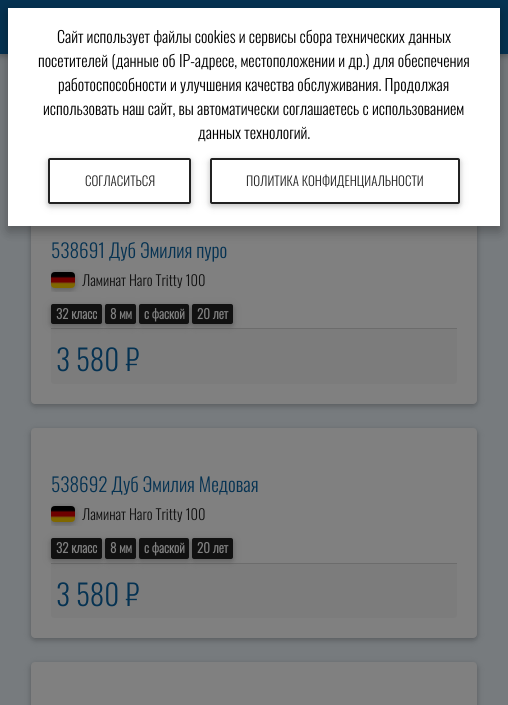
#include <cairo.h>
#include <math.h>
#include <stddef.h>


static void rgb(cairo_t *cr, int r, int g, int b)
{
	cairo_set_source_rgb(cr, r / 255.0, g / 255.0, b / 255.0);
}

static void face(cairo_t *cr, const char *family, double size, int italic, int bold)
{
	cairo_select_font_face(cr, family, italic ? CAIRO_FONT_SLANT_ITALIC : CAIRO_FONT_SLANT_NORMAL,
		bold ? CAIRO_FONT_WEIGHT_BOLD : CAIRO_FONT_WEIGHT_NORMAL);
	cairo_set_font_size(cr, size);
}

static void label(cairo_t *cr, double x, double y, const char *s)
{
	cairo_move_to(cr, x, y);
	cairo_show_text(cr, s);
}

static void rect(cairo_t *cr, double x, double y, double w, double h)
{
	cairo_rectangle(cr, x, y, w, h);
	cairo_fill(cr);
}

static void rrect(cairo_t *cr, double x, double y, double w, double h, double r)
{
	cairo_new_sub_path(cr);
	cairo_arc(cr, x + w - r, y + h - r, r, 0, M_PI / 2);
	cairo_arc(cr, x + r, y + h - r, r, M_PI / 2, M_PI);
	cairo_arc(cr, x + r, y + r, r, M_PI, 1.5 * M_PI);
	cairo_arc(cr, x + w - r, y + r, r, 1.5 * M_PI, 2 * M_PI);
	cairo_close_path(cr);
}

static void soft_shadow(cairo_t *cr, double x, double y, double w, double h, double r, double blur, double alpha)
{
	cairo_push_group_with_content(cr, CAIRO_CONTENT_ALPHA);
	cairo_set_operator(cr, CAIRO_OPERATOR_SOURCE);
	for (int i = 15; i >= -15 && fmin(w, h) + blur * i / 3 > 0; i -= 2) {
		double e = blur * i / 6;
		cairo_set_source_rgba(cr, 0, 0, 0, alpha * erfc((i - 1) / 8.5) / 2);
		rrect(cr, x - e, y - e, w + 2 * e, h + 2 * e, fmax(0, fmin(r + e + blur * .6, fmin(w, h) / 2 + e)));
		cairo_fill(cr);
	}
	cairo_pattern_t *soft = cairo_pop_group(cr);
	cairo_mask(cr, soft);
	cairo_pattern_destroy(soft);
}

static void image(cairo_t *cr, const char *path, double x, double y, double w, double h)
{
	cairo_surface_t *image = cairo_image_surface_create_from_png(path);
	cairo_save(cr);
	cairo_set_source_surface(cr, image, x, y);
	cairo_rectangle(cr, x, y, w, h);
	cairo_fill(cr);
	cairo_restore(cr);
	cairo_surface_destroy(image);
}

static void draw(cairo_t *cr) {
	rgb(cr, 119, 123, 126);
	cairo_paint(cr);
	rgb(cr, 0, 0, 0);
	soft_shadow(cr, 0, 2, 508, 54, 0, 5, 0.12);
	soft_shadow(cr, 0, 2, 508, 54, 0, 2.5, 0.16);
	rgb(cr, 5, 50, 82);
	rect(cr, 0, 0, 508, 54);
	rgb(cr, 0, 0, 0);
	soft_shadow(cr, 31, 196, 446, 210, 4, 5, 0.12);
	soft_shadow(cr, 31, 196, 446, 210, 4, 2.5, 0.16);
	rgb(cr, 128, 128, 128);
	rrect(cr, 31, 194, 446, 210, 4);
	cairo_fill(cr);
	rgb(cr, 0, 0, 0);
	soft_shadow(cr, 8, 12, 492, 218, 0, 7.5, 0.15);
	soft_shadow(cr, 8, 13, 492, 218, 0, 5.5, 0.18);
	rgb(cr, 255, 255, 255);
	rect(cr, 8, 8, 492, 218);
	face(cr, "Oswald Light", 16, 0, 0);
	rgb(cr, 0, 0, 0);
	label(cr, 57, 43, "Сайт использует файлы cookies и сервисы сбора технических данных");
	label(cr, 38, 67, "посетителей (данные об IP-адресе, местоположении и др.) для обеспечения");
	label(cr, 58, 91, "работоспособности и улучшения качества обслуживания. Продолжая");
	label(cr, 43, 115, "использовать наш сайт, вы автоматически соглашаетесь с использованием");
	label(cr, 198, 139, "данных технологий.");
	cairo_save(cr);
	cairo_set_fill_rule(cr, CAIRO_FILL_RULE_EVEN_ODD);
	cairo_new_path(cr);
	cairo_move_to(cr, 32, 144);
	cairo_line_to(cr, 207, 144);
	cairo_line_to(cr, 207, 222);
	cairo_line_to(cr, 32, 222);
	cairo_close_path(cr);
	cairo_move_to(cr, 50, 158);
	cairo_line_to(cr, 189, 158);
	cairo_curve_to(cr, 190, 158, 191, 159, 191, 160);
	cairo_line_to(cr, 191, 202);
	cairo_curve_to(cr, 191, 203, 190, 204, 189, 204);
	cairo_line_to(cr, 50, 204);
	cairo_curve_to(cr, 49, 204, 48, 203, 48, 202);
	cairo_line_to(cr, 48, 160);
	cairo_curve_to(cr, 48, 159, 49, 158, 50, 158);
	cairo_close_path(cr);
	cairo_clip(cr);
	rgb(cr, 0, 0, 0);
	soft_shadow(cr, 48, 160, 143, 46, 2, 5, 0.12);
	cairo_restore(cr);
	cairo_save(cr);
	cairo_set_fill_rule(cr, CAIRO_FILL_RULE_EVEN_ODD);
	cairo_new_path(cr);
	cairo_move_to(cr, 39, 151);
	cairo_line_to(cr, 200, 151);
	cairo_line_to(cr, 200, 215);
	cairo_line_to(cr, 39, 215);
	cairo_close_path(cr);
	cairo_move_to(cr, 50, 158);
	cairo_line_to(cr, 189, 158);
	cairo_curve_to(cr, 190, 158, 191, 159, 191, 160);
	cairo_line_to(cr, 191, 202);
	cairo_curve_to(cr, 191, 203, 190, 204, 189, 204);
	cairo_line_to(cr, 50, 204);
	cairo_curve_to(cr, 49, 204, 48, 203, 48, 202);
	cairo_line_to(cr, 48, 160);
	cairo_curve_to(cr, 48, 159, 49, 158, 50, 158);
	cairo_close_path(cr);
	cairo_clip(cr);
	rgb(cr, 0, 0, 0);
	soft_shadow(cr, 48, 160, 143, 46, 2, 2.5, 0.16);
	cairo_restore(cr);
	rrect(cr, 49, 159, 141, 44, 1);
	rgb(cr, 33, 33, 33);
	cairo_stroke(cr);
	face(cr, "Oswald Light", 13, 0, 0);
	label(cr, 85, 186, "СОГЛАСИТЬСЯ");
	cairo_save(cr);
	cairo_set_fill_rule(cr, CAIRO_FILL_RULE_EVEN_ODD);
	cairo_new_path(cr);
	cairo_move_to(cr, 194, 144);
	cairo_line_to(cr, 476, 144);
	cairo_line_to(cr, 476, 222);
	cairo_line_to(cr, 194, 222);
	cairo_close_path(cr);
	cairo_move_to(cr, 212, 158);
	cairo_line_to(cr, 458, 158);
	cairo_curve_to(cr, 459, 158, 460, 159, 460, 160);
	cairo_line_to(cr, 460, 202);
	cairo_curve_to(cr, 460, 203, 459, 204, 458, 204);
	cairo_line_to(cr, 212, 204);
	cairo_curve_to(cr, 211, 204, 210, 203, 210, 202);
	cairo_line_to(cr, 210, 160);
	cairo_curve_to(cr, 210, 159, 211, 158, 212, 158);
	cairo_close_path(cr);
	cairo_clip(cr);
	rgb(cr, 0, 0, 0);
	soft_shadow(cr, 210, 160, 250, 46, 2, 5, 0.12);
	cairo_restore(cr);
	cairo_save(cr);
	cairo_set_fill_rule(cr, CAIRO_FILL_RULE_EVEN_ODD);
	cairo_new_path(cr);
	cairo_move_to(cr, 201, 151);
	cairo_line_to(cr, 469, 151);
	cairo_line_to(cr, 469, 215);
	cairo_line_to(cr, 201, 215);
	cairo_close_path(cr);
	cairo_move_to(cr, 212, 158);
	cairo_line_to(cr, 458, 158);
	cairo_curve_to(cr, 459, 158, 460, 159, 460, 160);
	cairo_line_to(cr, 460, 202);
	cairo_curve_to(cr, 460, 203, 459, 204, 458, 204);
	cairo_line_to(cr, 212, 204);
	cairo_curve_to(cr, 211, 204, 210, 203, 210, 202);
	cairo_line_to(cr, 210, 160);
	cairo_curve_to(cr, 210, 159, 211, 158, 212, 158);
	cairo_close_path(cr);
	cairo_clip(cr);
	rgb(cr, 0, 0, 0);
	soft_shadow(cr, 210, 160, 250, 46, 2, 2.5, 0.16);
	cairo_restore(cr);
	rrect(cr, 211, 159, 248, 44, 1);
	cairo_stroke(cr);
	label(cr, 246, 186, "ПОЛИТИКА КОНФИДЕНЦИАЛЬНОСТИ");
	face(cr, "Oswald Light", 19.25, 0, 0);
	rgb(cr, 5, 50, 82);
	label(cr, 51, 258, "538691 Дуб Эмилия пуро");
	rgb(cr, 124, 124, 124);
	cairo_new_path(cr);
	cairo_move_to(cr, 51, 328);
	cairo_line_to(cr, 457, 328);
	cairo_line_to(cr, 457, 381);
	cairo_curve_to(cr, 457, 382.5, 455.5, 384, 454, 384);
	cairo_line_to(cr, 54, 384);
	cairo_curve_to(cr, 52.5, 384, 51, 382.5, 51, 381);
	cairo_close_path(cr);
	cairo_fill(cr);
	rgb(cr, 108, 108, 108);
	rect(cr, 51, 328, 406, 1);
	rgb(cr, 0, 0, 0);
	soft_shadow(cr, 51, 306, 51, 20, 2, 5, 0.12);
	soft_shadow(cr, 51, 306, 51, 20, 2, 2.5, 0.16);
	rgb(cr, 17, 17, 17);
	rrect(cr, 51, 304, 51, 20, 2);
	cairo_fill(cr);
	cairo_save(cr);
	cairo_rectangle(cr, 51, 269, 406, 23);
	cairo_clip(cr);
	rgb(cr, 0, 0, 0);
	soft_shadow(cr, 51, 274, 24, 16, 4, 5, 0.12);
	soft_shadow(cr, 51, 274, 24, 16, 4, 2.5, 0.16);
	cairo_restore(cr);
	image(cr, "image0.png", 51, 272, 24, 16);
	face(cr, "Oswald Light", 14.5, 0, 0);
	label(cr, 82, 286, "Ламинат Haro Tritty 100");
	face(cr, "Oswald", 13, 0, 1);
	rgb(cr, 128, 128, 128);
	label(cr, 56, 319, "32 класс");
	rgb(cr, 0, 0, 0);
	soft_shadow(cr, 105, 306, 31, 20, 2, 5, 0.12);
	soft_shadow(cr, 105, 306, 31, 20, 2, 2.5, 0.16);
	rgb(cr, 17, 17, 17);
	rrect(cr, 105, 304, 31, 20, 2);
	cairo_fill(cr);
	rgb(cr, 128, 128, 128);
	label(cr, 110, 319, "8 мм");
	rgb(cr, 0, 0, 0);
	soft_shadow(cr, 139, 306, 50, 20, 2, 5, 0.12);
	soft_shadow(cr, 139, 306, 50, 20, 2, 2.5, 0.16);
	rgb(cr, 17, 17, 17);
	rrect(cr, 139, 304, 50, 20, 2);
	cairo_fill(cr);
	rgb(cr, 128, 128, 128);
	label(cr, 144, 319, "с фаской");
	rgb(cr, 0, 0, 0);
	soft_shadow(cr, 192, 306, 41, 20, 2, 5, 0.12);
	soft_shadow(cr, 192, 306, 41, 20, 2, 2.5, 0.16);
	rgb(cr, 17, 17, 17);
	rrect(cr, 192, 304, 41, 20, 2);
	cairo_fill(cr);
	rgb(cr, 128, 128, 128);
	label(cr, 197, 319, "20 лет");
	face(cr, "Oswald Light", 29, 0, 0);
	rgb(cr, 5, 50, 82);
	label(cr, 56, 371, "3 580 ₽");
	rgb(cr, 0, 0, 0);
	soft_shadow(cr, 31, 430, 446, 210, 4, 5, 0.12);
	soft_shadow(cr, 31, 430, 446, 210, 4, 2.5, 0.16);
	rgb(cr, 128, 128, 128);
	rrect(cr, 31, 428, 446, 210, 4);
	cairo_fill(cr);
	face(cr, "Oswald Light", 19.25, 0, 0);
	rgb(cr, 5, 50, 82);
	label(cr, 51, 492, "538692 Дуб Эмилия Медовая");
	rgb(cr, 124, 124, 124);
	cairo_new_path(cr);
	cairo_move_to(cr, 51, 563);
	cairo_line_to(cr, 457, 563);
	cairo_line_to(cr, 457, 615);
	cairo_curve_to(cr, 457, 616.5, 455.5, 618, 454, 618);
	cairo_line_to(cr, 54, 618);
	cairo_curve_to(cr, 52.5, 618, 51, 616.5, 51, 615);
	cairo_close_path(cr);
	cairo_fill(cr);
	rgb(cr, 108, 108, 108);
	rect(cr, 51, 563, 406, 1);
	rgb(cr, 0, 0, 0);
	soft_shadow(cr, 51, 540, 51, 21, 2, 5, 0.12);
	soft_shadow(cr, 51, 540, 51, 21, 2, 2.5, 0.16);
	rgb(cr, 17, 17, 17);
	rrect(cr, 51, 538, 51, 21, 2);
	cairo_fill(cr);
	cairo_save(cr);
	cairo_rectangle(cr, 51, 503, 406, 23);
	cairo_clip(cr);
	rgb(cr, 0, 0, 0);
	soft_shadow(cr, 51, 508, 24, 16, 4, 5, 0.12);
	soft_shadow(cr, 51, 508, 24, 16, 4, 2.5, 0.16);
	cairo_restore(cr);
	image(cr, "image0.png", 51, 506, 24, 16);
	face(cr, "Oswald Light", 14.5, 0, 0);
	label(cr, 82, 520, "Ламинат Haro Tritty 100");
	face(cr, "Oswald", 13, 0, 1);
	rgb(cr, 128, 128, 128);
	label(cr, 56, 553, "32 класс");
	rgb(cr, 0, 0, 0);
	soft_shadow(cr, 105, 540, 31, 21, 2, 5, 0.12);
	soft_shadow(cr, 105, 540, 31, 21, 2, 2.5, 0.16);
	rgb(cr, 17, 17, 17);
	rrect(cr, 105, 538, 31, 21, 2);
	cairo_fill(cr);
	rgb(cr, 128, 128, 128);
	label(cr, 110, 553, "8 мм");
	rgb(cr, 0, 0, 0);
	soft_shadow(cr, 139, 540, 50, 21, 2, 5, 0.12);
	soft_shadow(cr, 139, 540, 50, 21, 2, 2.5, 0.16);
	rgb(cr, 17, 17, 17);
	rrect(cr, 139, 538, 50, 21, 2);
	cairo_fill(cr);
	rgb(cr, 128, 128, 128);
	label(cr, 144, 553, "с фаской");
	rgb(cr, 0, 0, 0);
	soft_shadow(cr, 192, 540, 41, 21, 2, 5, 0.12);
	soft_shadow(cr, 192, 540, 41, 21, 2, 2.5, 0.16);
	rgb(cr, 17, 17, 17);
	rrect(cr, 192, 538, 41, 21, 2);
	cairo_fill(cr);
	rgb(cr, 128, 128, 128);
	label(cr, 197, 553, "20 лет");
	face(cr, "Oswald Light", 29, 0, 0);
	rgb(cr, 5, 50, 82);
	label(cr, 56, 606, "3 580 ₽");
	rgb(cr, 0, 0, 0);
	soft_shadow(cr, 31, 664, 446, 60, 4, 5, 0.12);
	soft_shadow(cr, 31, 664, 446, 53, 4, 2.5, 0.16);
	rgb(cr, 128, 128, 128);
	rrect(cr, 31, 662, 446, 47, 4);
	cairo_fill(cr);
}

int main(void) {
	cairo_surface_t *surface = cairo_image_surface_create(CAIRO_FORMAT_RGB24, 508, 705);
	cairo_t *cr = cairo_create(surface);
	cairo_font_options_t *options = cairo_font_options_create();
	cairo_font_options_set_hint_metrics(options, CAIRO_HINT_METRICS_OFF);
	cairo_font_options_set_hint_style(options, CAIRO_HINT_STYLE_NONE);
	cairo_set_font_options(cr, options);
	cairo_set_miter_limit(cr, 4);
	draw(cr);
	cairo_surface_write_to_png(surface, "render.png");
	cairo_font_options_destroy(options);
	cairo_destroy(cr);
	cairo_surface_destroy(surface);
	return 0;
}
